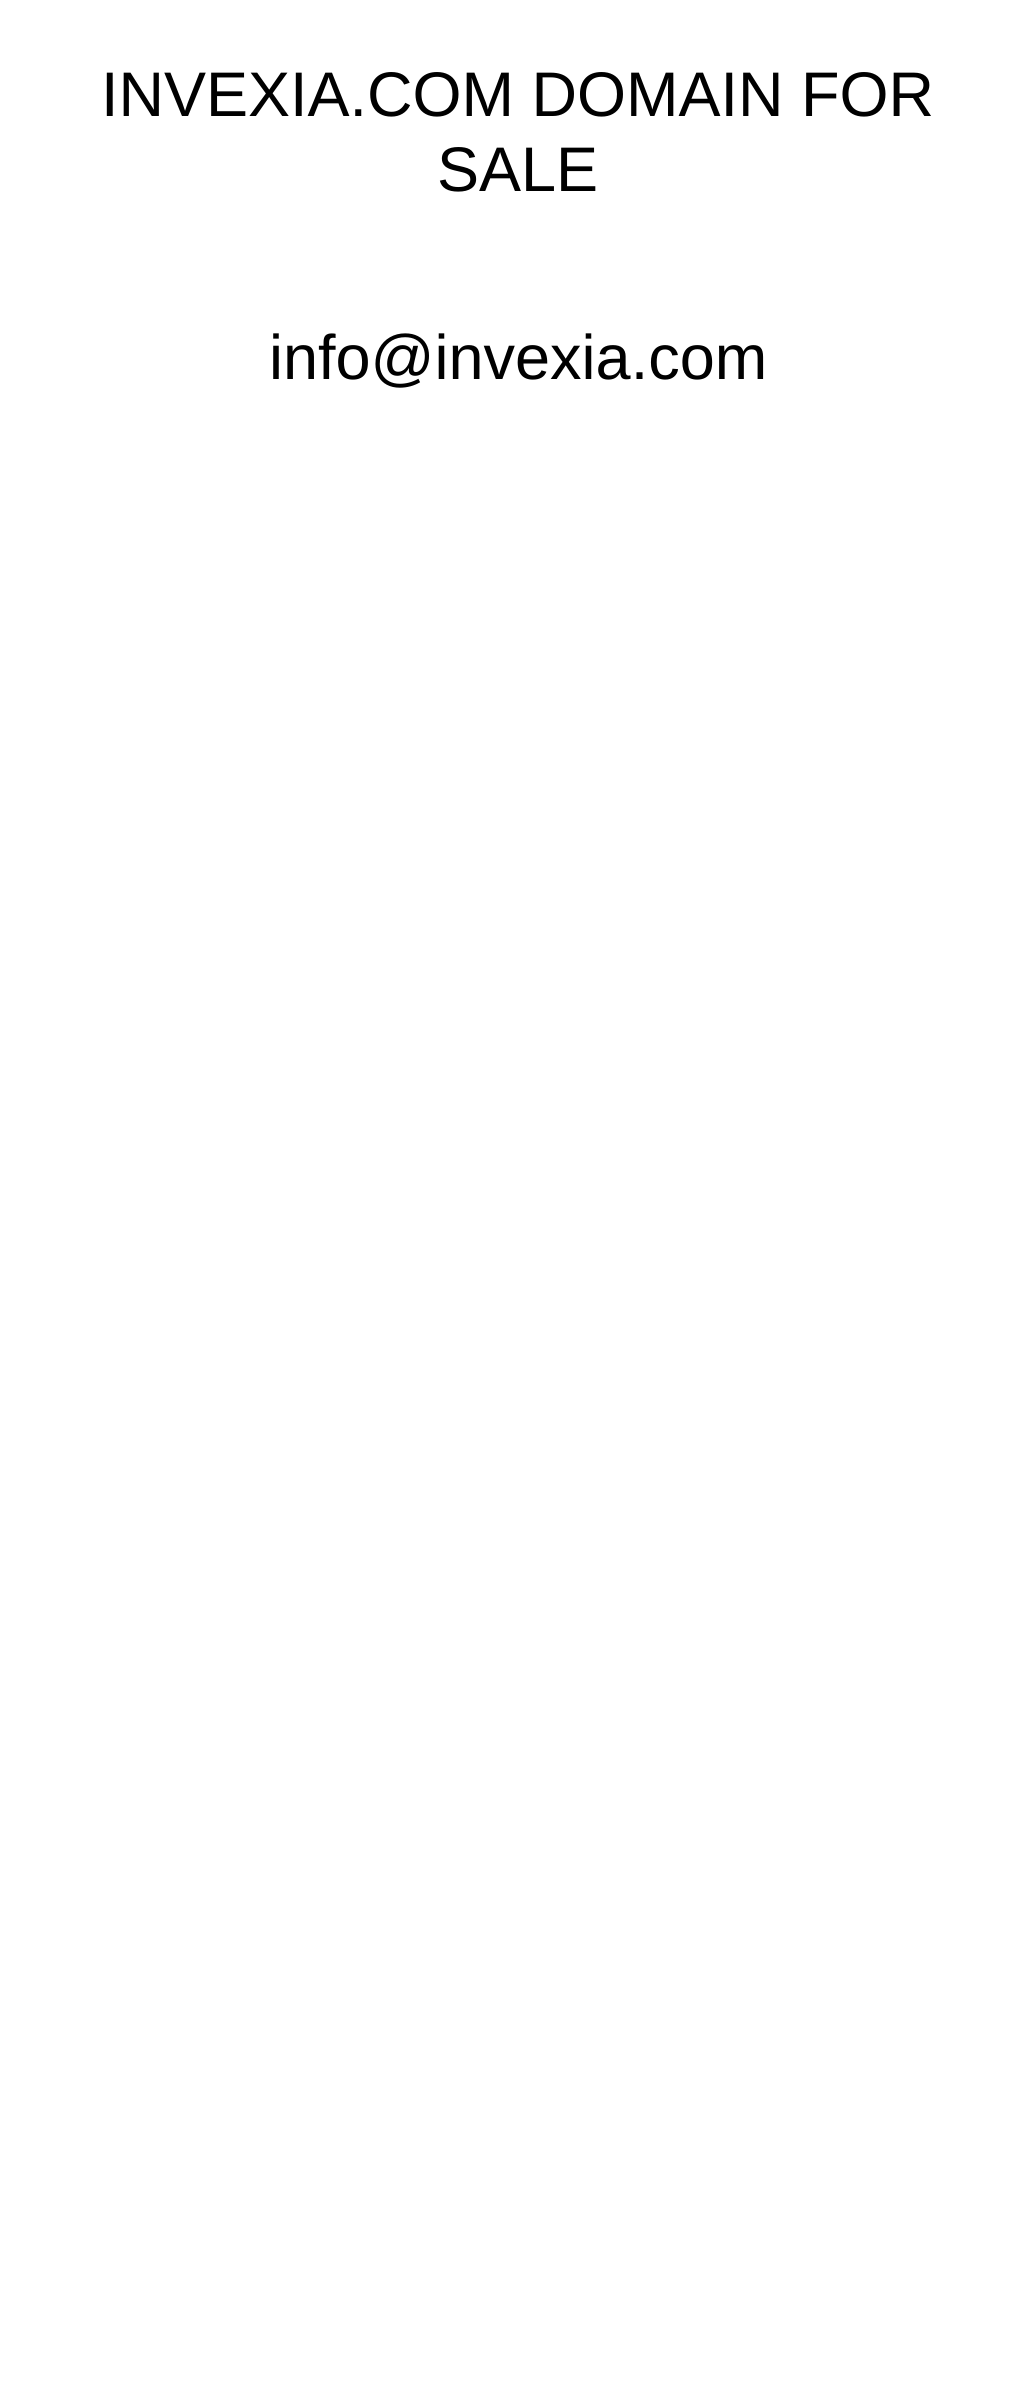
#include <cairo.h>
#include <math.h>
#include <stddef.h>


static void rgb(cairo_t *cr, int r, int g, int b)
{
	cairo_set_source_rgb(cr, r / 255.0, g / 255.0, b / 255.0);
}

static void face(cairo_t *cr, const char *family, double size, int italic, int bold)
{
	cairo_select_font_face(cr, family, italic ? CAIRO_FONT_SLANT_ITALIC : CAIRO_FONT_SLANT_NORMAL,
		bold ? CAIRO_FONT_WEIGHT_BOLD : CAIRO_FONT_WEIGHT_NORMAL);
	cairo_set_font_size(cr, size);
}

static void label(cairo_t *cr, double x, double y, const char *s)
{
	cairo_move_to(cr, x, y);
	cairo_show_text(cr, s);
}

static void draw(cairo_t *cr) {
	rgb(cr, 255, 255, 255);
	cairo_paint(cr);
	face(cr, "Liberation Sans", 63, 0, 0);
	rgb(cr, 0, 0, 0);
	label(cr, 101, 116, "INVEXIA.COM DOMAIN FOR");
	label(cr, 437, 191, "SALE");
	label(cr, 269, 379, "info@invexia.com");
}

int main(void) {
	cairo_surface_t *surface = cairo_image_surface_create(CAIRO_FORMAT_RGB24, 1035, 2387);
	cairo_t *cr = cairo_create(surface);
	cairo_font_options_t *options = cairo_font_options_create();
	cairo_font_options_set_hint_metrics(options, CAIRO_HINT_METRICS_OFF);
	cairo_font_options_set_hint_style(options, CAIRO_HINT_STYLE_NONE);
	cairo_set_font_options(cr, options);
	cairo_set_miter_limit(cr, 4);
	draw(cr);
	cairo_surface_write_to_png(surface, "render.png");
	cairo_font_options_destroy(options);
	cairo_destroy(cr);
	cairo_surface_destroy(surface);
	return 0;
}
